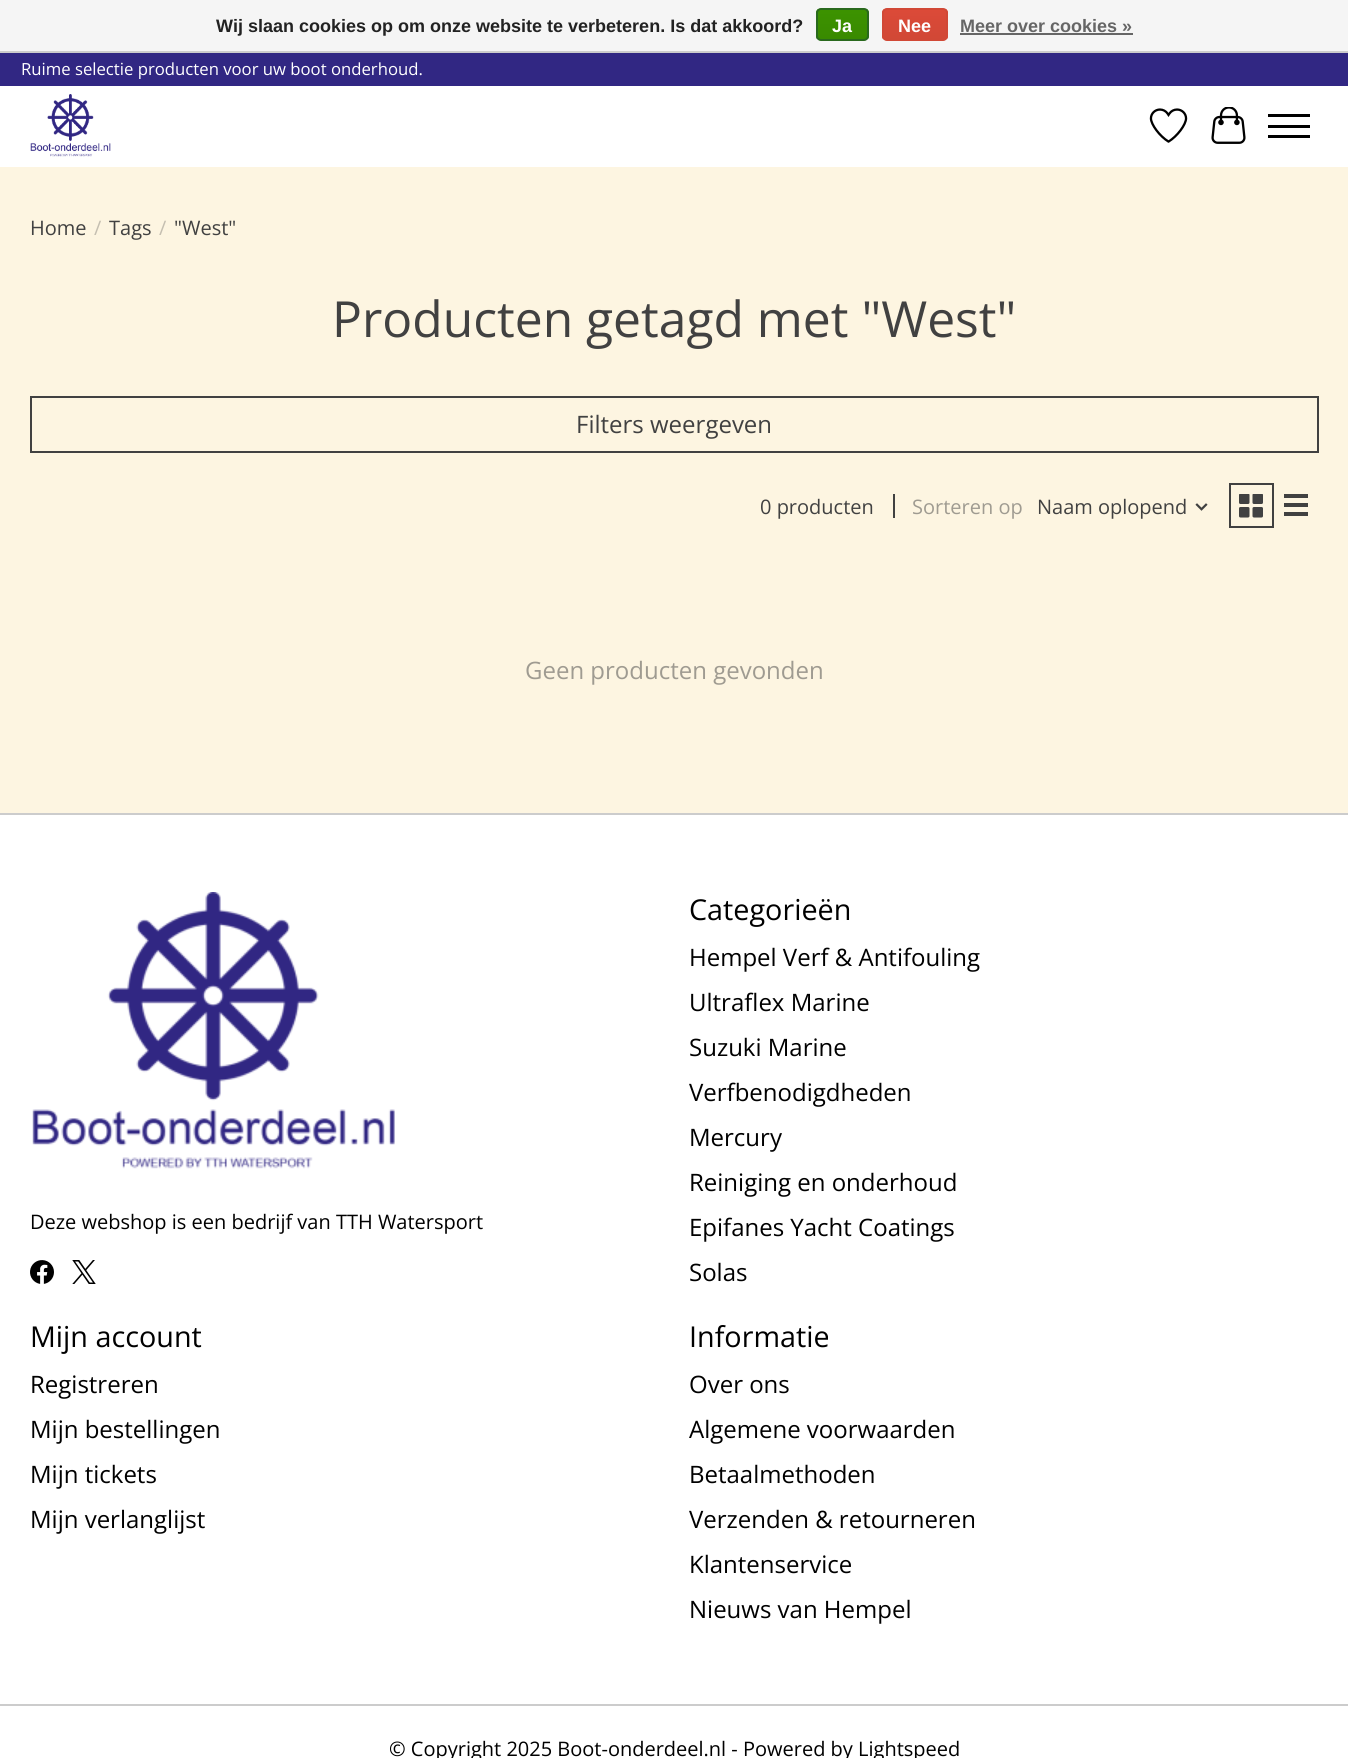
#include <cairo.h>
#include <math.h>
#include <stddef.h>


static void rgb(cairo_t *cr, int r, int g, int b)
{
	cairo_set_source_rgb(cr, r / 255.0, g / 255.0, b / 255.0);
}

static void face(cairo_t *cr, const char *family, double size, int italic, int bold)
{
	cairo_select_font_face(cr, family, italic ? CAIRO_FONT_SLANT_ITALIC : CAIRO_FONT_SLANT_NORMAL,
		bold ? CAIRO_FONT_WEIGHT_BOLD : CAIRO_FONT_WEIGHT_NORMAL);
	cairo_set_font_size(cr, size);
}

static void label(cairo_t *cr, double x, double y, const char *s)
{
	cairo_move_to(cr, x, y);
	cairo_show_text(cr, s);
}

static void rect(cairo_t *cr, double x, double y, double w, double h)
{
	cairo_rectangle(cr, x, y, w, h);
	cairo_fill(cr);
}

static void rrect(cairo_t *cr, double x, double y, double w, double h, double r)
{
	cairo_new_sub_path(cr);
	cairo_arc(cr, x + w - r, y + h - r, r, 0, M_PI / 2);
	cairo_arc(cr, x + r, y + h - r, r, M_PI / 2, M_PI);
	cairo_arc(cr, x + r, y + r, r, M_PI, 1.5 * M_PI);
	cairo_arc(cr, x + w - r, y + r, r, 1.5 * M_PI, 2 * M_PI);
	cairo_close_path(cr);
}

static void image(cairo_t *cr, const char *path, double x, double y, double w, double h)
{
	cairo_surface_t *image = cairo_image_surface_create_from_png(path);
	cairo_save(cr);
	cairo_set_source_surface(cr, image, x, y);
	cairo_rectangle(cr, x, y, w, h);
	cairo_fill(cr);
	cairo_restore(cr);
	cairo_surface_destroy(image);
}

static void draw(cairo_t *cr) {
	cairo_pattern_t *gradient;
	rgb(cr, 253, 245, 225);
	cairo_paint(cr);
	rgb(cr, 245, 245, 245);
	rect(cr, 0, 0, 1348, 51);
	rgb(cr, 204, 204, 204);
	rect(cr, 0, 51, 1348, 2);
	face(cr, "Liberation Sans", 18, 0, 1);
	rgb(cr, 34, 34, 34);
	label(cr, 216, 32, "Wij slaan cookies op om onze website te verbeteren. Is dat akkoord?");
	cairo_save(cr);
	rrect(cr, 816, 8, 53, 33, 5);
	cairo_clip(cr);
	gradient = cairo_pattern_create_linear(842, 9, 842, 39);
	cairo_pattern_add_color_stop_rgba(gradient, 0, 0.235, 0.576, 0, 1);
	cairo_pattern_add_color_stop_rgba(gradient, 1, 0.224, 0.541, 0, 1);
	cairo_set_source(cr, gradient);
	cairo_pattern_destroy(gradient);
	rect(cr, 816, 9, 53, 30);
	cairo_restore(cr);
	rrect(cr, 817, 9, 51, 31, 4);
	rgb(cr, 41, 105, 29);
	cairo_stroke(cr);
	rgb(cr, 255, 255, 255);
	label(cr, 832, 32, "Ja");
	cairo_save(cr);
	rrect(cr, 882, 8, 66, 33, 5);
	cairo_clip(cr);
	gradient = cairo_pattern_create_linear(915, 9, 915, 39);
	cairo_pattern_add_color_stop_rgba(gradient, 0, 0.863, 0.29, 0.22, 1);
	cairo_pattern_add_color_stop_rgba(gradient, 1, 0.82, 0.282, 0.212, 1);
	cairo_set_source(cr, gradient);
	cairo_pattern_destroy(gradient);
	rect(cr, 882, 9, 66, 30);
	cairo_restore(cr);
	rrect(cr, 883, 9, 64, 31, 4);
	rgb(cr, 209, 72, 54);
	cairo_stroke(cr);
	rgb(cr, 255, 255, 255);
	label(cr, 898, 32, "Nee");
	rgb(cr, 102, 102, 102);
	label(cr, 960, 32, "Meer over cookies »");
	rect(cr, 960, 33, 173, 2);
	rgb(cr, 255, 255, 255);
	rect(cr, 0, 86, 1348, 81);
	rgb(cr, 49, 39, 131);
	rect(cr, 0, 53, 1348, 33);
	face(cr, "Open Sans", 16.7, 0, 0);
	rgb(cr, 255, 255, 255);
	label(cr, 21, 75, "Ruime selectie producten voor uw boot onderhoud.");
	image(cr, "image0.png", 30, 94, 81, 63);
	image(cr, "image1.png", 1149, 108, 39, 35);
	image(cr, "image2.png", 1211, 107, 35, 37);
	rgb(cr, 0, 0, 0);
	rect(cr, 1268, 125, 42, 3);
	rect(cr, 1268, 114, 42, 3);
	rect(cr, 1268, 135, 42, 3);
	face(cr, "Open Sans", 20, 0, 0);
	rgb(cr, 65, 65, 65);
	label(cr, 30, 235, "Home");
	rgb(cr, 197, 191, 177);
	label(cr, 94, 235, "/");
	rgb(cr, 65, 65, 65);
	label(cr, 109, 235, "Tags");
	rgb(cr, 197, 191, 177);
	label(cr, 159, 235, "/");
	rgb(cr, 65, 65, 65);
	label(cr, 174, 235, "\"West\"");
	face(cr, "Open Sans", 49.75, 0, 0);
	label(cr, 332, 337, "Producten getagd met \"West\"");
	cairo_rectangle(cr, 31, 397, 1287, 55);
	cairo_stroke(cr);
	face(cr, "Open Sans", 24, 0, 0);
	label(cr, 576, 433, "Filters weergeven");
	face(cr, "Open Sans", 20, 0, 0);
	label(cr, 760, 514, "0 producten");
	rect(cr, 893, 494, 2, 24);
	rgb(cr, 159, 155, 145);
	label(cr, 912, 514, "Sorteren op");
	rgb(cr, 65, 65, 65);
	label(cr, 1037, 514, "Naam oplopend");
	image(cr, "image3.png", 1195, 503, 13, 8);
	cairo_rectangle(cr, 1230, 484, 43, 43);
	cairo_stroke(cr);
	image(cr, "image4.png", 1239, 494, 24, 24);
	rect(cr, 1284, 494, 24, 4);
	rect(cr, 1284, 503, 24, 4);
	rect(cr, 1284, 512, 24, 4);
	face(cr, "Open Sans", 24, 0, 0);
	rgb(cr, 159, 155, 145);
	label(cr, 525, 679, "Geen producten gevonden");
	rgb(cr, 255, 255, 255);
	rect(cr, 0, 815, 1348, 943);
	rgb(cr, 204, 204, 204);
	rect(cr, 0, 813, 1348, 2);
	image(cr, "image5.png", 32, 892, 363, 277);
	face(cr, "Open Sans", 20, 0, 0);
	rgb(cr, 0, 0, 0);
	label(cr, 30, 1229, "Deze webshop is een bedrijf van TTH Watersport");
	image(cr, "image6.png", 30, 1260, 24, 24);
	image(cr, "image7.png", 72, 1260, 24, 24);
	face(cr, "Open Sans", 28.75, 0, 0);
	label(cr, 689, 920, "Categorieën");
	face(cr, "Open Sans", 24, 0, 0);
	label(cr, 689, 966, "Hempel Verf & Antifouling");
	label(cr, 689, 1011, "Ultraflex Marine");
	label(cr, 689, 1056, "Suzuki Marine");
	label(cr, 689, 1101, "Verfbenodigdheden");
	label(cr, 689, 1146, "Mercury");
	label(cr, 689, 1191, "Reiniging en onderhoud");
	label(cr, 689, 1236, "Epifanes Yacht Coatings");
	label(cr, 689, 1281, "Solas");
	face(cr, "Open Sans", 28.75, 0, 0);
	label(cr, 30, 1347, "Mijn account");
	face(cr, "Open Sans", 24, 0, 0);
	label(cr, 30, 1393, "Registreren");
	label(cr, 30, 1438, "Mijn bestellingen");
	label(cr, 30, 1483, "Mijn tickets");
	label(cr, 30, 1528, "Mijn verlanglijst");
	face(cr, "Open Sans", 28.75, 0, 0);
	label(cr, 689, 1347, "Informatie");
	face(cr, "Open Sans", 24, 0, 0);
	label(cr, 689, 1393, "Over ons");
	label(cr, 689, 1438, "Algemene voorwaarden");
	label(cr, 689, 1483, "Betaalmethoden");
	label(cr, 689, 1528, "Verzenden & retourneren");
	label(cr, 689, 1573, "Klantenservice");
	label(cr, 689, 1618, "Nieuws van Hempel");
	rgb(cr, 204, 204, 204);
	rect(cr, 0, 1704, 1348, 2);
	face(cr, "Open Sans", 20, 0, 0);
	rgb(cr, 0, 0, 0);
	label(cr, 389, 1756, "© Copyright 2025 Boot-onderdeel.nl - Powered by Lightspeed");
}

int main(void) {
	cairo_surface_t *surface = cairo_image_surface_create(CAIRO_FORMAT_RGB24, 1348, 1758);
	cairo_t *cr = cairo_create(surface);
	cairo_font_options_t *options = cairo_font_options_create();
	cairo_font_options_set_hint_metrics(options, CAIRO_HINT_METRICS_OFF);
	cairo_font_options_set_hint_style(options, CAIRO_HINT_STYLE_NONE);
	cairo_set_font_options(cr, options);
	cairo_set_miter_limit(cr, 4);
	draw(cr);
	cairo_surface_write_to_png(surface, "render.png");
	cairo_font_options_destroy(options);
	cairo_destroy(cr);
	cairo_surface_destroy(surface);
	return 0;
}
